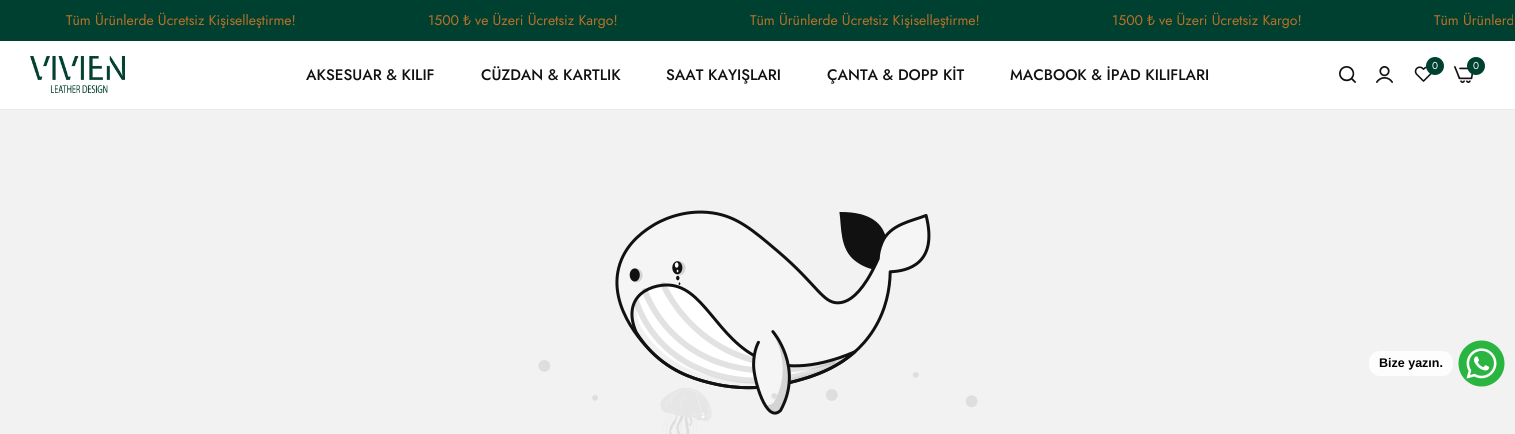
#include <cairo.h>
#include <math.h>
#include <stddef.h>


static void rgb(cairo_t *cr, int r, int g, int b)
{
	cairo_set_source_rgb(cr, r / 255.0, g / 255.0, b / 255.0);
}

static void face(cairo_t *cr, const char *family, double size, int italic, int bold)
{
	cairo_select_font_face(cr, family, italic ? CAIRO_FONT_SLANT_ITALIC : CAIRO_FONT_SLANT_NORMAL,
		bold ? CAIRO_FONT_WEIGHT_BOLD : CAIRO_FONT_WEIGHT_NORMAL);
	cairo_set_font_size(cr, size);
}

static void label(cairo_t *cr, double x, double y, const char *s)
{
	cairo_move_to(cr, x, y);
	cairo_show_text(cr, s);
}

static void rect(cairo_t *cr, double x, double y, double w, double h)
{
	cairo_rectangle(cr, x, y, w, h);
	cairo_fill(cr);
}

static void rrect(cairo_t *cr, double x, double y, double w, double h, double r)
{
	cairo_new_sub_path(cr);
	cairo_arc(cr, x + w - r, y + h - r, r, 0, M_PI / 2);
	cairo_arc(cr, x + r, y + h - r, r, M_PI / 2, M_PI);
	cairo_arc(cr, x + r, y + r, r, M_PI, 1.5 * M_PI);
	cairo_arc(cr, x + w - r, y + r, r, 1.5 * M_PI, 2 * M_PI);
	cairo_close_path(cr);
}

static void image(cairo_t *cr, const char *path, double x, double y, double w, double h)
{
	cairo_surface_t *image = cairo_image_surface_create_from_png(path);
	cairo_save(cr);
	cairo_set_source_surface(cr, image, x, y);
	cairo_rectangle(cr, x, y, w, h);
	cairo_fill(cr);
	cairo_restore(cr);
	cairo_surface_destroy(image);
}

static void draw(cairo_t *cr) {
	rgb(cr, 242, 242, 242);
	cairo_paint(cr);
	rgb(cr, 0, 64, 48);
	rect(cr, 0, 0, 1515, 41);
	face(cr, "Jost", 14, 0, 0);
	rgb(cr, 185, 112, 40);
	label(cr, 66, 25, "Tüm Ürünlerde Ücretsiz Kişiselleştirme!");
	label(cr, 428, 25, "1500");
	face(cr, "Noto Sans", 14, 0, 0);
	label(cr, 463, 25, "₺");
	face(cr, "Jost", 14, 0, 0);
	label(cr, 475, 25, "ve Üzeri Ücretsiz Kargo!");
	label(cr, 750, 25, "Tüm Ürünlerde Ücretsiz Kişiselleştirme!");
	label(cr, 1112, 25, "1500");
	face(cr, "Noto Sans", 14, 0, 0);
	label(cr, 1147, 25, "₺");
	face(cr, "Jost", 14, 0, 0);
	label(cr, 1159, 25, "ve Üzeri Ücretsiz Kargo!");
	label(cr, 1434, 25, "Tüm Ürünlerd");
	rgb(cr, 235, 235, 235);
	rect(cr, 0, 109, 1515, 1);
	rgb(cr, 255, 255, 255);
	rect(cr, 0, 41, 1515, 68);
	image(cr, "image0.png", 30, 56, 95, 37);
	face(cr, "Jost Medium", 15.2, 0, 0);
	rgb(cr, 17, 17, 17);
	label(cr, 306, 80, "AKSESUAR & KILIF");
	label(cr, 481, 80, "CÜZDAN & KARTLIK");
	label(cr, 666, 80, "SAAT KAYIŞLARI");
	label(cr, 827, 80, "ÇANTA & DOPP KİT");
	label(cr, 1010, 80, "MACBOOK & İPAD KILIFLARI");
	image(cr, "image1.png", 1339, 66, 17, 17);
	image(cr, "image2.png", 1376, 66, 17, 17);
	image(cr, "image3.png", 1414, 66, 18, 16);
	rgb(cr, 0, 64, 48);
	cairo_arc(cr, 1435, 66, 9, 0, 2 * M_PI);
	cairo_fill(cr);
	face(cr, "Jost", 10, 0, 0);
	rgb(cr, 255, 255, 255);
	label(cr, 1432, 69, "0");
	image(cr, "image4.png", 1454, 66, 20, 17);
	rgb(cr, 0, 64, 48);
	cairo_arc(cr, 1476, 66, 9, 0, 2 * M_PI);
	cairo_fill(cr);
	rgb(cr, 255, 255, 255);
	label(cr, 1473, 69, "0");
	image(cr, "image5.png", 538, 210, 440, 224);
	rgb(cr, 253, 253, 253);
	rrect(cr, 1369, 351, 84, 25, 11);
	cairo_fill(cr);
	face(cr, "Liberation Sans", 12.5, 0, 1);
	rgb(cr, 0, 0, 0);
	label(cr, 1379, 367, "Bize yazın.");
	image(cr, "image6.png", 1458, 340, 47, 47);
}

int main(void) {
	cairo_surface_t *surface = cairo_image_surface_create(CAIRO_FORMAT_RGB24, 1515, 434);
	cairo_t *cr = cairo_create(surface);
	cairo_font_options_t *options = cairo_font_options_create();
	cairo_font_options_set_hint_metrics(options, CAIRO_HINT_METRICS_OFF);
	cairo_font_options_set_hint_style(options, CAIRO_HINT_STYLE_NONE);
	cairo_set_font_options(cr, options);
	cairo_set_miter_limit(cr, 4);
	draw(cr);
	cairo_surface_write_to_png(surface, "render.png");
	cairo_font_options_destroy(options);
	cairo_destroy(cr);
	cairo_surface_destroy(surface);
	return 0;
}
